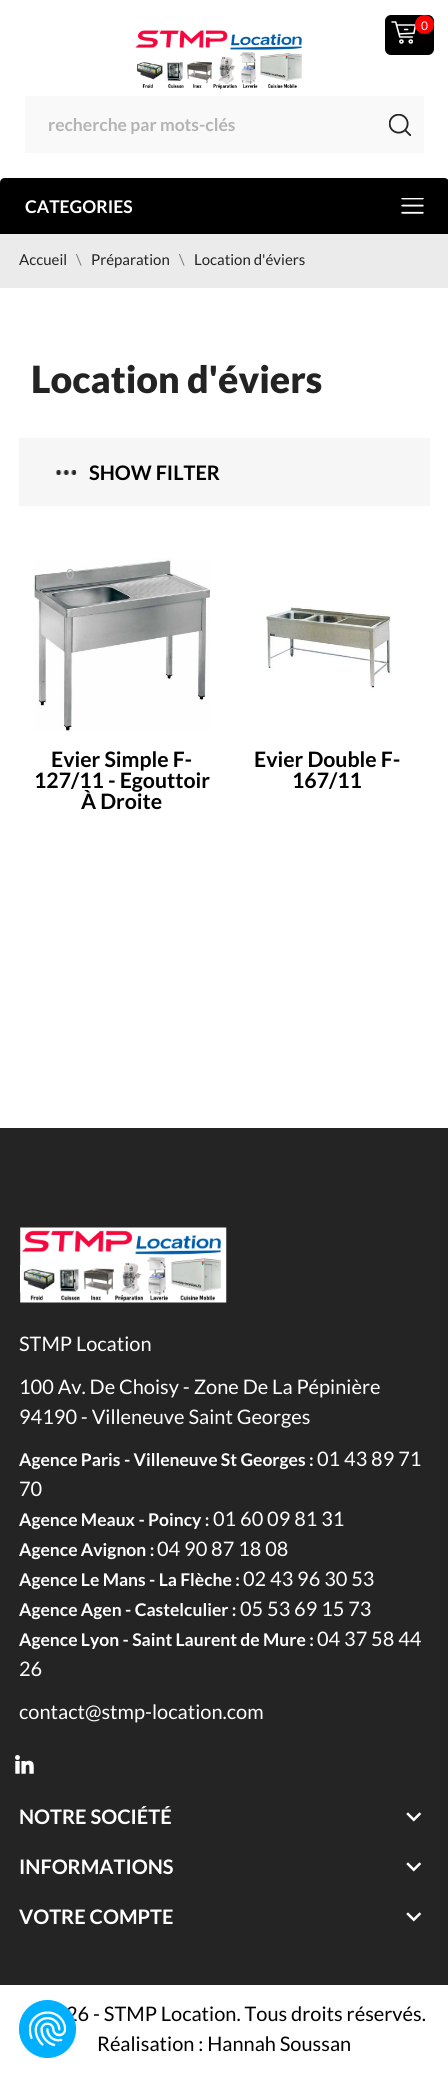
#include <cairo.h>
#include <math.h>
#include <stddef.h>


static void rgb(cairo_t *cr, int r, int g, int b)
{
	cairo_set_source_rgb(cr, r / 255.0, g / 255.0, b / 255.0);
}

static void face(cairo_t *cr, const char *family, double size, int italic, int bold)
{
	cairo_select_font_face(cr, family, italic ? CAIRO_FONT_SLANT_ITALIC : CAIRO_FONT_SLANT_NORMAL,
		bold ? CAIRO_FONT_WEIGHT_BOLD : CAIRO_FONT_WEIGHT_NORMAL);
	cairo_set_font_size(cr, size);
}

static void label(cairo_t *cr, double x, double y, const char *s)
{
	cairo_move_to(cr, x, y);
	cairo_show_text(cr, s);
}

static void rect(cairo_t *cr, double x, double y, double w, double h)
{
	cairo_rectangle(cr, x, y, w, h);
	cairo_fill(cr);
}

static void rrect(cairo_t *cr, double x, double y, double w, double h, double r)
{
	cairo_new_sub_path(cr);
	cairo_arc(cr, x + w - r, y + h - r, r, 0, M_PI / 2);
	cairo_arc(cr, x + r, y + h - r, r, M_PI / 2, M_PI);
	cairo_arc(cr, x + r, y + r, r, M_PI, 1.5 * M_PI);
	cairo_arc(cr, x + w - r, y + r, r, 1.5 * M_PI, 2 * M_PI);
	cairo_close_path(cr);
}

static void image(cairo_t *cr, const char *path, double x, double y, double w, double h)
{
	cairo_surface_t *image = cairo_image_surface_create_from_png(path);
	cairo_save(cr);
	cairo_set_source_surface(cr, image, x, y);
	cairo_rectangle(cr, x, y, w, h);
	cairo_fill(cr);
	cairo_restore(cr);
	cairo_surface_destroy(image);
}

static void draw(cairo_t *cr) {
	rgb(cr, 255, 255, 255);
	cairo_paint(cr);
	rgb(cr, 0, 0, 0);
	rrect(cr, 385, 15, 49, 40, 6);
	cairo_fill(cr);
	image(cr, "image0.png", 391, 21, 25, 23);
	rgb(cr, 255, 0, 0);
	cairo_arc(cr, 424.5, 24.5, 9.5, 0, 2 * M_PI);
	cairo_fill(cr);
	face(cr, "Lato", 12, 0, 0);
	rgb(cr, 255, 255, 255);
	label(cr, 421, 30, "0");
	image(cr, "image1.png", 135, 30, 167, 60);
	rgb(cr, 249, 249, 249);
	rect(cr, 25, 96, 399, 57);
	face(cr, "Lato", 17.5, 0, 1);
	rgb(cr, 180, 180, 180);
	label(cr, 48, 131, "recherche par mots-clés");
	image(cr, "image2.png", 389, 114, 22, 22);
	rgb(cr, 0, 0, 0);
	cairo_new_path(cr);
	cairo_move_to(cr, 5, 178);
	cairo_line_to(cr, 444, 178);
	cairo_curve_to(cr, 447, 178, 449, 180, 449, 183);
	cairo_line_to(cr, 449, 234);
	cairo_line_to(cr, 0, 234);
	cairo_line_to(cr, 0, 183);
	cairo_curve_to(cr, 0, 180, 2, 178, 5, 178);
	cairo_close_path(cr);
	cairo_fill(cr);
	rgb(cr, 255, 255, 255);
	label(cr, 25, 213, "CATEGORIES");
	image(cr, "image3.png", 401, 198, 23, 16);
	rgb(cr, 235, 235, 235);
	rect(cr, 0, 234, 448, 54);
	face(cr, "Lato", 15, 0, 0);
	rgb(cr, 35, 35, 35);
	label(cr, 19, 265, "Accueil");
	rgb(cr, 122, 122, 122);
	label(cr, 76, 265, "\\");
	rgb(cr, 35, 35, 35);
	label(cr, 91, 265, "Préparation");
	rgb(cr, 122, 122, 122);
	label(cr, 179, 265, "\\");
	rgb(cr, 35, 35, 35);
	label(cr, 194, 265, "Location d'éviers");
	face(cr, "Lato Black", 37.5, 0, 0);
	label(cr, 31, 393, "Location d'éviers");
	rgb(cr, 246, 246, 246);
	rect(cr, 19, 438, 411, 68);
	image(cr, "image4.png", 56, 470, 21, 5);
	face(cr, "Lato", 20, 0, 1);
	rgb(cr, 0, 0, 0);
	label(cr, 89, 480, "SHOW FILTER");
	image(cr, "image5.png", 33, 558, 178, 174);
	face(cr, "Lato", 14, 0, 0);
	rgb(cr, 180, 180, 180);
	label(cr, 66, 579, "0");
	face(cr, "Lato", 21.25, 0, 1);
	rgb(cr, 0, 0, 0);
	label(cr, 51, 767, "Evier Simple F-");
	label(cr, 34, 788, "127/11 - Egouttoir");
	label(cr, 81, 809, "À Droite");
	image(cr, "image6.png", 266, 606, 126, 83);
	label(cr, 254, 767, "Evier Double F-");
	label(cr, 292, 788, "167/11");
	rgb(cr, 36, 36, 36);
	rect(cr, 0, 1128, 448, 857);
	image(cr, "image7.png", 20, 1227, 207, 76);
	face(cr, "Lato", 20, 0, 0);
	rgb(cr, 255, 255, 255);
	label(cr, 19, 1351, "STMP Location");
	label(cr, 19, 1394, "100 Av. De Choisy - Zone De La Pépinière");
	label(cr, 19, 1424, "94190 - Villeneuve Saint Georges");
	face(cr, "Lato", 17.5, 0, 1);
	label(cr, 19, 1466, "Agence Paris - Villeneuve St Georges :");
	face(cr, "Lato", 20, 0, 0);
	label(cr, 317, 1466, "01 43 89 71");
	label(cr, 19, 1496, "70");
	face(cr, "Lato", 17.5, 0, 1);
	label(cr, 19, 1526, "Agence Meaux - Poincy :");
	face(cr, "Lato", 20, 0, 0);
	label(cr, 213, 1526, "01 60 09 81 31");
	face(cr, "Lato", 17.5, 0, 1);
	label(cr, 19, 1556, "Agence Avignon :");
	face(cr, "Lato", 20, 0, 0);
	label(cr, 157, 1556, "04 90 87 18 08");
	face(cr, "Lato", 17.5, 0, 1);
	label(cr, 19, 1586, "Agence Le Mans - La Flèche :");
	face(cr, "Lato", 20, 0, 0);
	label(cr, 243, 1586, "02 43 96 30 53");
	face(cr, "Lato", 17.5, 0, 1);
	label(cr, 19, 1616, "Agence Agen - Castelculier :");
	face(cr, "Lato", 20, 0, 0);
	label(cr, 240, 1616, "05 53 69 15 73");
	face(cr, "Lato", 17.5, 0, 1);
	label(cr, 19, 1646, "Agence Lyon - Saint Laurent de Mure :");
	face(cr, "Lato", 20, 0, 0);
	label(cr, 317, 1646, "04 37 58 44");
	label(cr, 19, 1676, "26");
	label(cr, 19, 1719, "contact@stmp-location.com");
	image(cr, "image8.png", 15, 1755, 19, 19);
	face(cr, "Lato", 20, 0, 1);
	label(cr, 19, 1824, "NOTRE SOCIÉTÉ");
	image(cr, "image9.png", 406, 1812, 16, 10);
	label(cr, 19, 1874, "INFORMATIONS");
	image(cr, "image9.png", 406, 1862, 16, 10);
	label(cr, 19, 1924, "VOTRE COMPTE");
	image(cr, "image9.png", 406, 1912, 16, 10);
	face(cr, "Lato", 20, 0, 0);
	rgb(cr, 0, 0, 0);
	label(cr, 66, 2021, "26 - STMP Location. Tous droits réservés.");
	label(cr, 97, 2051, "Réalisation : Hannah Soussan");
	rgb(cr, 0, 176, 255);
	rrect(cr, 19.5, 2000.5, 56, 57, 28);
	cairo_fill_preserve(cr);
	cairo_set_line_width(cr, 1);
	cairo_stroke(cr);
	image(cr, "image10.png", 29, 2011, 37, 36);
}

int main(void) {
	cairo_surface_t *surface = cairo_image_surface_create(CAIRO_FORMAT_RGB24, 448, 2076);
	cairo_t *cr = cairo_create(surface);
	cairo_font_options_t *options = cairo_font_options_create();
	cairo_font_options_set_hint_metrics(options, CAIRO_HINT_METRICS_OFF);
	cairo_font_options_set_hint_style(options, CAIRO_HINT_STYLE_NONE);
	cairo_set_font_options(cr, options);
	cairo_set_miter_limit(cr, 4);
	draw(cr);
	cairo_surface_write_to_png(surface, "render.png");
	cairo_font_options_destroy(options);
	cairo_destroy(cr);
	cairo_surface_destroy(surface);
	return 0;
}
